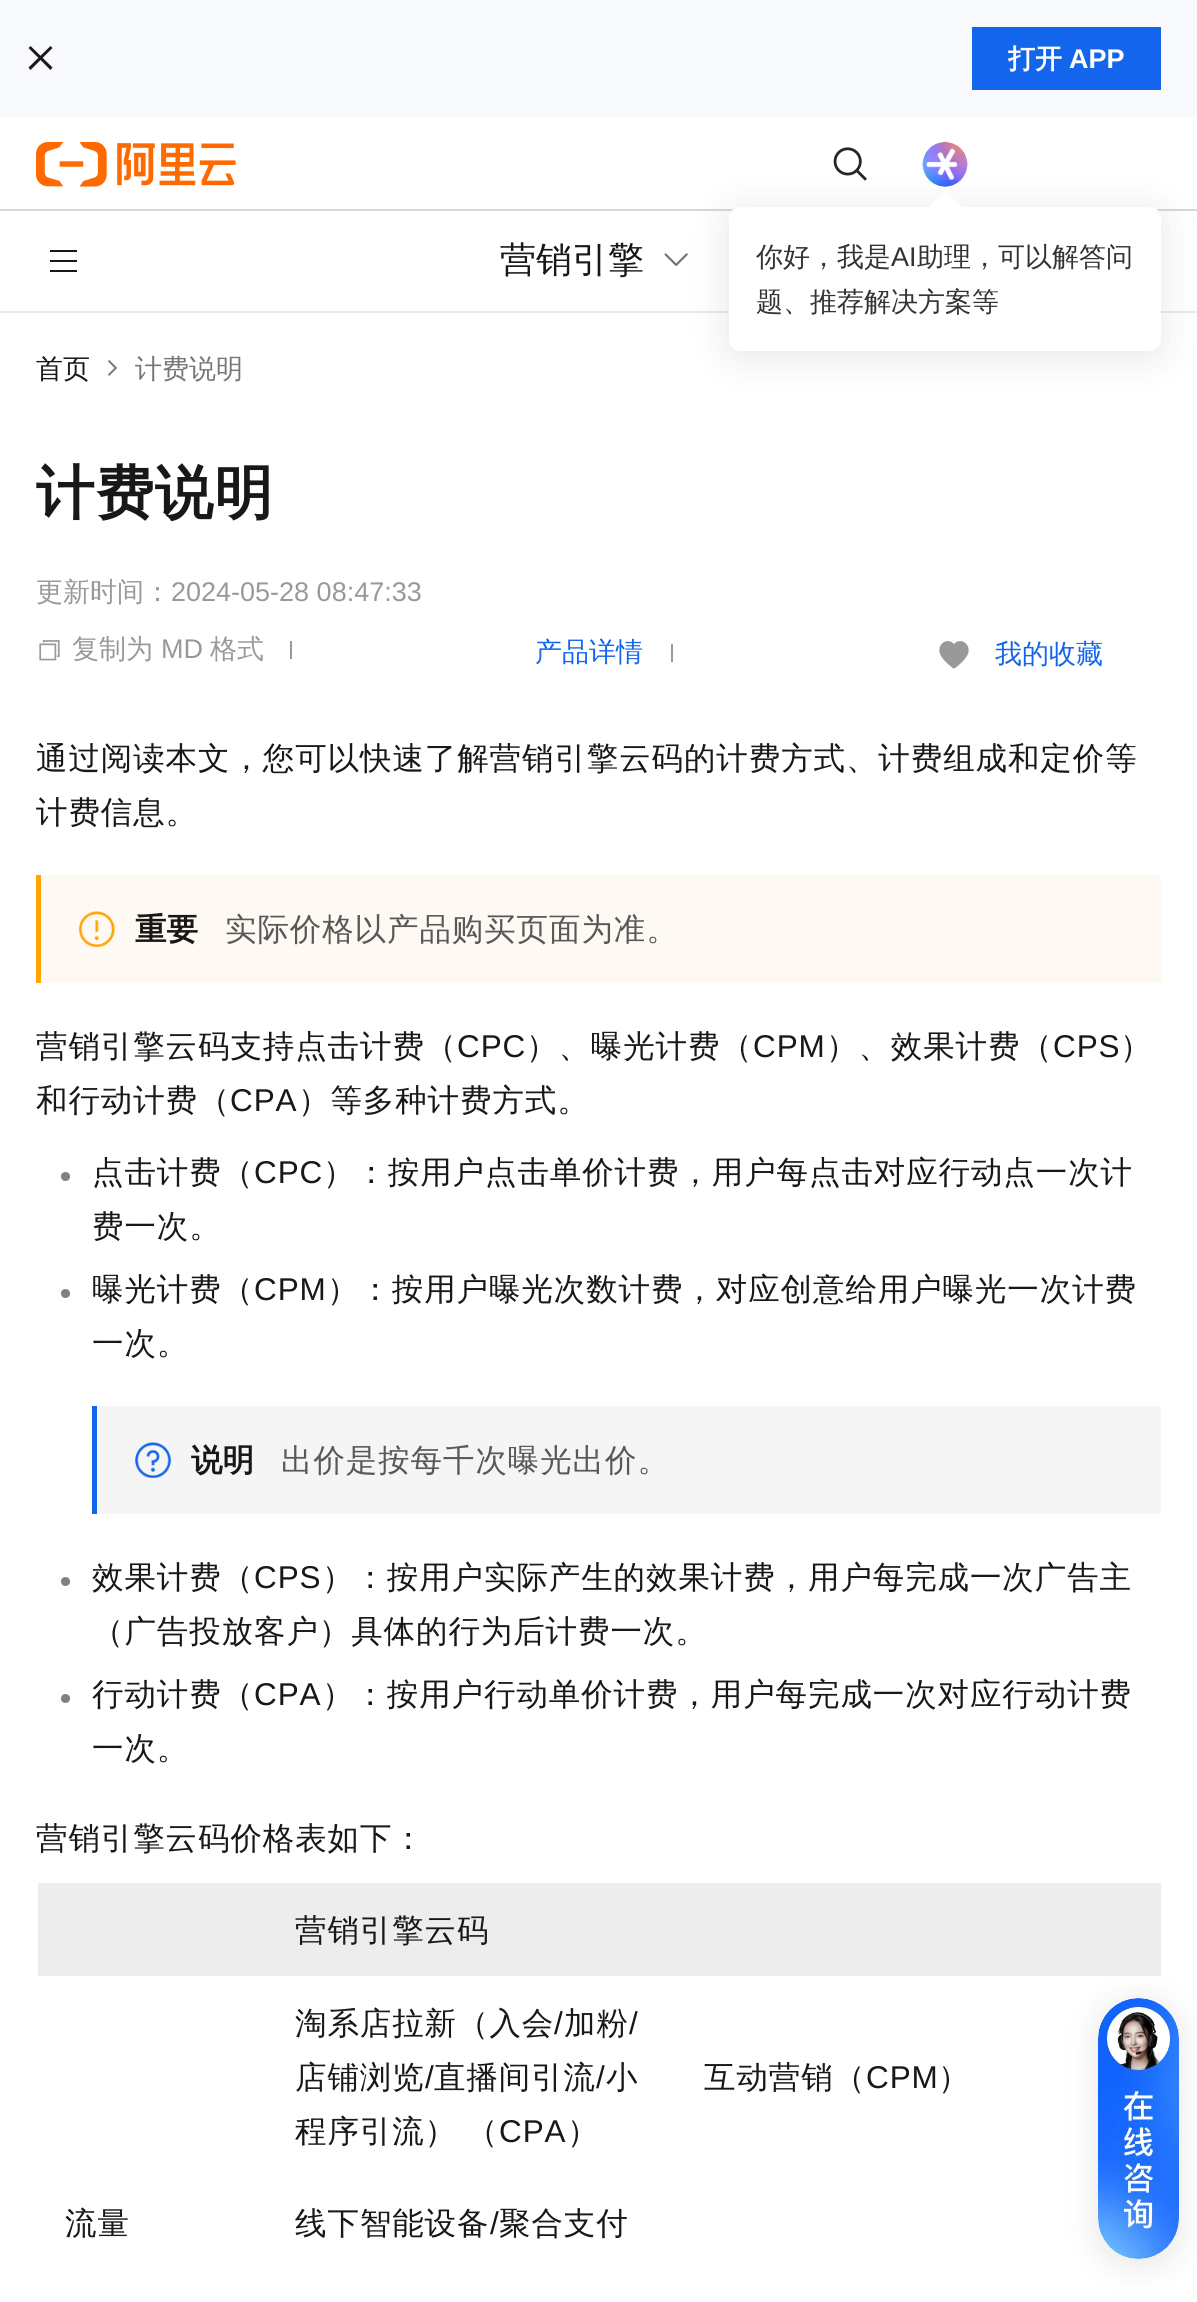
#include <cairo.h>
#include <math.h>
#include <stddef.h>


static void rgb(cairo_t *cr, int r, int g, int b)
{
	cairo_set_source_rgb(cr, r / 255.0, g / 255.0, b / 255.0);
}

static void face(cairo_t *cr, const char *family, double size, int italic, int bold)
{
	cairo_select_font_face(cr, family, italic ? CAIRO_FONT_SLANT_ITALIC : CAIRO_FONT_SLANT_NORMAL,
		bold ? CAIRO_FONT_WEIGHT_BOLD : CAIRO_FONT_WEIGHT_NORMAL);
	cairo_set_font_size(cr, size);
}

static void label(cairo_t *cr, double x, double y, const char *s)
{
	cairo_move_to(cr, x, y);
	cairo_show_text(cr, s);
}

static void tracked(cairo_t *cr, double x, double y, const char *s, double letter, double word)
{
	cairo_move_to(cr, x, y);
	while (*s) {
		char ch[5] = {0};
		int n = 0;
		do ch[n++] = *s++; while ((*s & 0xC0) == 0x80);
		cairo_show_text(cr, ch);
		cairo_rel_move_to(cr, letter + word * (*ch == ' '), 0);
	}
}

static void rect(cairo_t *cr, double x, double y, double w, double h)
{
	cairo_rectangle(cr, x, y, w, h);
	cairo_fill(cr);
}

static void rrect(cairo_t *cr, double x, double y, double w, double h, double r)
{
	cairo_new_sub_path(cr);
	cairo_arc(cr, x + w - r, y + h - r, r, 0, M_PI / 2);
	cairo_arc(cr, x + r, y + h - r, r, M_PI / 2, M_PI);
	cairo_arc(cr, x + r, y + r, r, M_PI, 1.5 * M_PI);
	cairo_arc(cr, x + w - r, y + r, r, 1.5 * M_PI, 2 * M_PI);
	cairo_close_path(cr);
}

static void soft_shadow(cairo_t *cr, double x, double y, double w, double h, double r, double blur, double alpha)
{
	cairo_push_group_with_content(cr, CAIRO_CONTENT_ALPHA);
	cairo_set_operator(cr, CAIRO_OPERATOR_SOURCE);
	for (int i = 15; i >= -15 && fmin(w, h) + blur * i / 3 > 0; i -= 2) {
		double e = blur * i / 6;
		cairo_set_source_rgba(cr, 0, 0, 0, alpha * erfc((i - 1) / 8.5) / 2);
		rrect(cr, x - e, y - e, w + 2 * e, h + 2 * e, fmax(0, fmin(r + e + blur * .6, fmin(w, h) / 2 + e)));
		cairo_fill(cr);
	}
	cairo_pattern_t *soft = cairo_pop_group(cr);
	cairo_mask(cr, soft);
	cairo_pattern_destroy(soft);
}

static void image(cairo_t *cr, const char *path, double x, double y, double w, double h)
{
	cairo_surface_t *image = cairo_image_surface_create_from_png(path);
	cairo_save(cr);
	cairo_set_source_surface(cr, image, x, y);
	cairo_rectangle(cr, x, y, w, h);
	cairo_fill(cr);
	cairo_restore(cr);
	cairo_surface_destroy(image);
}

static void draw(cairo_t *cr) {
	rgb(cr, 255, 255, 255);
	cairo_paint(cr);
	rgb(cr, 247, 249, 252);
	rect(cr, 0, 0, 1197, 117);
	rgb(cr, 24, 24, 24);
	cairo_new_path(cr);
	cairo_move_to(cr, 30.5, 46);
	cairo_line_to(cr, 52.5, 67.5);
	cairo_line_to(cr, 50.5, 70);
	cairo_line_to(cr, 28.5, 48);
	cairo_close_path(cr);
	cairo_move_to(cr, 50.5, 46);
	cairo_line_to(cr, 52.5, 48);
	cairo_line_to(cr, 30.5, 70);
	cairo_line_to(cr, 28.5, 67.5);
	cairo_close_path(cr);
	cairo_fill(cr);
	rgb(cr, 19, 102, 236);
	rect(cr, 972, 27, 189, 63);
	face(cr, "WenQuanYi Zen Hei", 27, 0, 1);
	rgb(cr, 255, 255, 255);
	label(cr, 1008, 68, "打开");
	face(cr, "Liberation Sans", 27, 0, 1);
	label(cr, 1069, 68, "APP");
	rgb(cr, 215, 216, 217);
	rect(cr, 0, 209, 1197, 2);
	image(cr, "image0.png", 36, 142, 200, 45);
	image(cr, "image1.png", 833, 147, 34, 34);
	image(cr, "image2.png", 922, 141, 46, 46);
	image(cr, "image3.png", 926, 148, 32, 32);
	rgb(cr, 233, 233, 233);
	rect(cr, 0, 311, 1197, 2);
	image(cr, "image4.png", 664, 253, 24, 13);
	rgb(cr, 0, 0, 0);
	soft_shadow(cr, 729, 212, 432, 144, 11, 20, 0.1);
	rgb(cr, 255, 255, 255);
	rrect(cr, 729, 207, 432, 144, 11);
	cairo_fill(cr);
	cairo_new_path(cr);
	cairo_move_to(cr, 945, 191);
	cairo_line_to(cr, 961, 207);
	cairo_line_to(cr, 945, 223);
	cairo_line_to(cr, 929, 207);
	cairo_close_path(cr);
	cairo_fill(cr);
	face(cr, "WenQuanYi Zen Hei Medium", 27, 0, 0);
	rgb(cr, 51, 51, 51);
	label(cr, 756, 266, "你好，我是");
	face(cr, "Liberation Sans", 27, 0, 0);
	label(cr, 891, 266, "AI");
	face(cr, "WenQuanYi Zen Hei Medium", 27, 0, 0);
	label(cr, 917, 266, "助理，可以解答问");
	label(cr, 756, 311, "题、推荐解决方案等");
	rgb(cr, 24, 24, 24);
	rect(cr, 50, 250, 27, 2);
	rect(cr, 50, 260, 27, 2);
	rect(cr, 50, 270, 27, 2);
	face(cr, "WenQuanYi Zen Hei Medium", 36, 0, 0);
	label(cr, 500, 272, "营销引擎");
	face(cr, "WenQuanYi Zen Hei Medium", 27, 0, 0);
	label(cr, 36, 378, "首页");
	image(cr, "image5.png", 108, 360, 10, 16);
	rgb(cr, 115, 119, 122);
	label(cr, 135, 378, "计费说明");
	face(cr, "WenQuanYi Zen Hei", 58.5, 0, 1);
	rgb(cr, 24, 24, 24);
	tracked(cr, 36, 513, "计费说明", 0.9, 0);
	face(cr, "WenQuanYi Zen Hei Medium", 27, 0, 0);
	rgb(cr, 153, 153, 153);
	label(cr, 36, 601, "更新时间：");
	face(cr, "Liberation Sans", 27, 0, 0);
	label(cr, 171, 601, "2024-05-28 08:47:33");
	image(cr, "image6.png", 39, 640, 21, 21);
	face(cr, "WenQuanYi Zen Hei Medium", 27, 0, 0);
	label(cr, 72, 658, "复制为");
	face(cr, "Liberation Sans", 27, 0, 0);
	label(cr, 161, 658, "MD");
	face(cr, "WenQuanYi Zen Hei Medium", 27, 0, 0);
	label(cr, 210, 658, "格式");
	rect(cr, 290, 641, 2, 18);
	rgb(cr, 19, 102, 236);
	label(cr, 535, 661, "产品详情");
	rgb(cr, 153, 153, 153);
	rect(cr, 671, 644, 2, 18);
	image(cr, "image7.png", 939, 641, 30, 28);
	rgb(cr, 19, 102, 236);
	label(cr, 995, 663, "我的收藏");
	face(cr, "WenQuanYi Zen Hei Medium", 31.5, 0, 0);
	rgb(cr, 24, 24, 24);
	tracked(cr, 36, 769, "通过阅读本文，您可以快速了解营销引擎云码的计费方式、计费组成和定价等", 0.9, 0);
	tracked(cr, 36, 823, "计费信息。", 0.9, 0);
	rgb(cr, 255, 249, 243);
	rect(cr, 41, 875, 1120, 108);
	rgb(cr, 255, 164, 0);
	rect(cr, 36, 875, 5, 108);
	image(cr, "image8.png", 79, 911, 36, 36);
	face(cr, "WenQuanYi Zen Hei", 31.5, 0, 1);
	rgb(cr, 24, 24, 24);
	label(cr, 135, 940, "重要");
	face(cr, "WenQuanYi Zen Hei Medium", 31.5, 0, 0);
	rgb(cr, 88, 88, 88);
	tracked(cr, 225, 940, "实际价格以产品购买页面为准。", 0.9, 0);
	rgb(cr, 24, 24, 24);
	tracked(cr, 36, 1057, "营销引擎云码支持点击计费（", 0.9, 0);
	face(cr, "Liberation Sans", 31.5, 0, 0);
	tracked(cr, 457, 1057, "CPC", 0.9, 0);
	face(cr, "WenQuanYi Zen Hei Medium", 31.5, 0, 0);
	tracked(cr, 526, 1057, "）、曝光计费（", 0.9, 0);
	face(cr, "Liberation Sans", 31.5, 0, 0);
	tracked(cr, 753, 1057, "CPM", 0.9, 0);
	face(cr, "WenQuanYi Zen Hei Medium", 31.5, 0, 0);
	tracked(cr, 826, 1057, "）、效果计费（", 0.9, 0);
	face(cr, "Liberation Sans", 31.5, 0, 0);
	tracked(cr, 1053, 1057, "CPS", 0.9, 0);
	face(cr, "WenQuanYi Zen Hei Medium", 31.5, 0, 0);
	tracked(cr, 1120, 1057, "）", 0.9, 0);
	tracked(cr, 36, 1111, "和行动计费（", 0.9, 0);
	face(cr, "Liberation Sans", 31.5, 0, 0);
	tracked(cr, 230, 1111, "CPA", 0.9, 0);
	face(cr, "WenQuanYi Zen Hei Medium", 31.5, 0, 0);
	tracked(cr, 298, 1111, "）等多种计费方式。", 0.9, 0);
	rgb(cr, 128, 128, 128);
	cairo_new_path(cr);
	cairo_arc(cr, 65.5, 1176.5, 4.5, 0, 2 * M_PI);
	cairo_fill(cr);
	rgb(cr, 24, 24, 24);
	tracked(cr, 92, 1183, "点击计费（", 0.9, 0);
	face(cr, "Liberation Sans", 31.5, 0, 0);
	tracked(cr, 254, 1183, "CPC", 0.9, 0);
	face(cr, "WenQuanYi Zen Hei Medium", 31.5, 0, 0);
	tracked(cr, 323, 1183, "）：按用户点击单价计费，用户每点击对应行动点一次计", 0.9, 0);
	tracked(cr, 92, 1237, "费一次。", 0.9, 0);
	rgb(cr, 128, 128, 128);
	cairo_new_path(cr);
	cairo_arc(cr, 65.5, 1293.5, 4.5, 0, 2 * M_PI);
	cairo_fill(cr);
	rgb(cr, 24, 24, 24);
	tracked(cr, 92, 1300, "曝光计费（", 0.9, 0);
	face(cr, "Liberation Sans", 31.5, 0, 0);
	tracked(cr, 254, 1300, "CPM", 0.9, 0);
	face(cr, "WenQuanYi Zen Hei Medium", 31.5, 0, 0);
	tracked(cr, 327, 1300, "）：按用户曝光次数计费，对应创意给用户曝光一次计费", 0.9, 0);
	tracked(cr, 92, 1354, "一次。", 0.9, 0);
	rgb(cr, 245, 245, 246);
	rect(cr, 97, 1406, 1064, 108);
	rgb(cr, 19, 102, 236);
	rect(cr, 92, 1406, 5, 108);
	image(cr, "image9.png", 135, 1442, 36, 36);
	face(cr, "WenQuanYi Zen Hei", 31.5, 0, 1);
	rgb(cr, 24, 24, 24);
	label(cr, 191, 1471, "说明");
	face(cr, "WenQuanYi Zen Hei Medium", 31.5, 0, 0);
	rgb(cr, 88, 88, 88);
	tracked(cr, 281, 1471, "出价是按每千次曝光出价。", 0.9, 0);
	rgb(cr, 128, 128, 128);
	cairo_new_path(cr);
	cairo_arc(cr, 65.5, 1581.5, 4.5, 0, 2 * M_PI);
	cairo_fill(cr);
	rgb(cr, 24, 24, 24);
	tracked(cr, 92, 1588, "效果计费（", 0.9, 0);
	face(cr, "Liberation Sans", 31.5, 0, 0);
	tracked(cr, 254, 1588, "CPS", 0.9, 0);
	face(cr, "WenQuanYi Zen Hei Medium", 31.5, 0, 0);
	tracked(cr, 322, 1588, "）：按用户实际产生的效果计费，用户每完成一次广告主", 0.9, 0);
	tracked(cr, 92, 1642, "（广告投放客户）具体的行为后计费一次。", 0.9, 0);
	rgb(cr, 128, 128, 128);
	cairo_new_path(cr);
	cairo_arc(cr, 65.5, 1698.5, 4.5, 0, 2 * M_PI);
	cairo_fill(cr);
	rgb(cr, 24, 24, 24);
	tracked(cr, 92, 1705, "行动计费（", 0.9, 0);
	face(cr, "Liberation Sans", 31.5, 0, 0);
	tracked(cr, 254, 1705, "CPA", 0.9, 0);
	face(cr, "WenQuanYi Zen Hei Medium", 31.5, 0, 0);
	tracked(cr, 322, 1705, "）：按用户行动单价计费，用户每完成一次对应行动计费", 0.9, 0);
	tracked(cr, 92, 1759, "一次。", 0.9, 0);
	tracked(cr, 36, 1849, "营销引擎云码价格表如下：", 0.9, 0);
	rgb(cr, 237, 237, 237);
	rect(cr, 38, 1883, 1123, 93);
	rgb(cr, 24, 24, 24);
	tracked(cr, 295, 1941, "营销引擎云码", 0.9, 0);
	tracked(cr, 295, 2034, "淘系店拉新（入会", 0.9, 0);
	face(cr, "Liberation Sans", 31.5, 0, 0);
	tracked(cr, 554, 2034, "/", 0.9, 0);
	face(cr, "WenQuanYi Zen Hei Medium", 31.5, 0, 0);
	tracked(cr, 564, 2034, "加粉", 0.9, 0);
	face(cr, "Liberation Sans", 31.5, 0, 0);
	tracked(cr, 629, 2034, "/", 0.9, 0);
	face(cr, "WenQuanYi Zen Hei Medium", 31.5, 0, 0);
	tracked(cr, 295, 2088, "店铺浏览", 0.9, 0);
	face(cr, "Liberation Sans", 31.5, 0, 0);
	tracked(cr, 425, 2088, "/", 0.9, 0);
	face(cr, "WenQuanYi Zen Hei Medium", 31.5, 0, 0);
	tracked(cr, 434, 2088, "直播间引流", 0.9, 0);
	face(cr, "Liberation Sans", 31.5, 0, 0);
	tracked(cr, 596, 2088, "/", 0.9, 0);
	face(cr, "WenQuanYi Zen Hei Medium", 31.5, 0, 0);
	tracked(cr, 606, 2088, "小", 0.9, 0);
	tracked(cr, 295, 2142, "程序引流） （", 0.9, -1);
	face(cr, "Liberation Sans", 31.5, 0, 0);
	tracked(cr, 499, 2142, "CPA", 0.9, 0);
	face(cr, "WenQuanYi Zen Hei Medium", 31.5, 0, 0);
	tracked(cr, 567, 2142, "）", 0.9, 0);
	tracked(cr, 704, 2088, "互动营销（", 0.9, 0);
	face(cr, "Liberation Sans", 31.5, 0, 0);
	tracked(cr, 866, 2088, "CPM", 0.9, 0);
	face(cr, "WenQuanYi Zen Hei Medium", 31.5, 0, 0);
	tracked(cr, 938, 2088, "）", 0.9, 0);
	tracked(cr, 65, 2234, "流量", 0.9, 0);
	tracked(cr, 295, 2234, "线下智能设备", 0.9, 0);
	face(cr, "Liberation Sans", 31.5, 0, 0);
	tracked(cr, 490, 2234, "/", 0.9, 0);
	face(cr, "WenQuanYi Zen Hei Medium", 31.5, 0, 0);
	tracked(cr, 499, 2234, "聚合支付", 0.9, 0);
	rgb(cr, 0, 0, 0);
	soft_shadow(cr, 1098, 2003, 81, 261, 40.5, 17, 0.1);
	image(cr, "image10.png", 1098, 1998, 81, 261);
}

int main(void) {
	cairo_surface_t *surface = cairo_image_surface_create(CAIRO_FORMAT_RGB24, 1197, 2302);
	cairo_t *cr = cairo_create(surface);
	cairo_font_options_t *options = cairo_font_options_create();
	cairo_font_options_set_hint_metrics(options, CAIRO_HINT_METRICS_OFF);
	cairo_font_options_set_hint_style(options, CAIRO_HINT_STYLE_NONE);
	cairo_set_font_options(cr, options);
	cairo_set_miter_limit(cr, 4);
	draw(cr);
	cairo_surface_write_to_png(surface, "render.png");
	cairo_font_options_destroy(options);
	cairo_destroy(cr);
	cairo_surface_destroy(surface);
	return 0;
}
